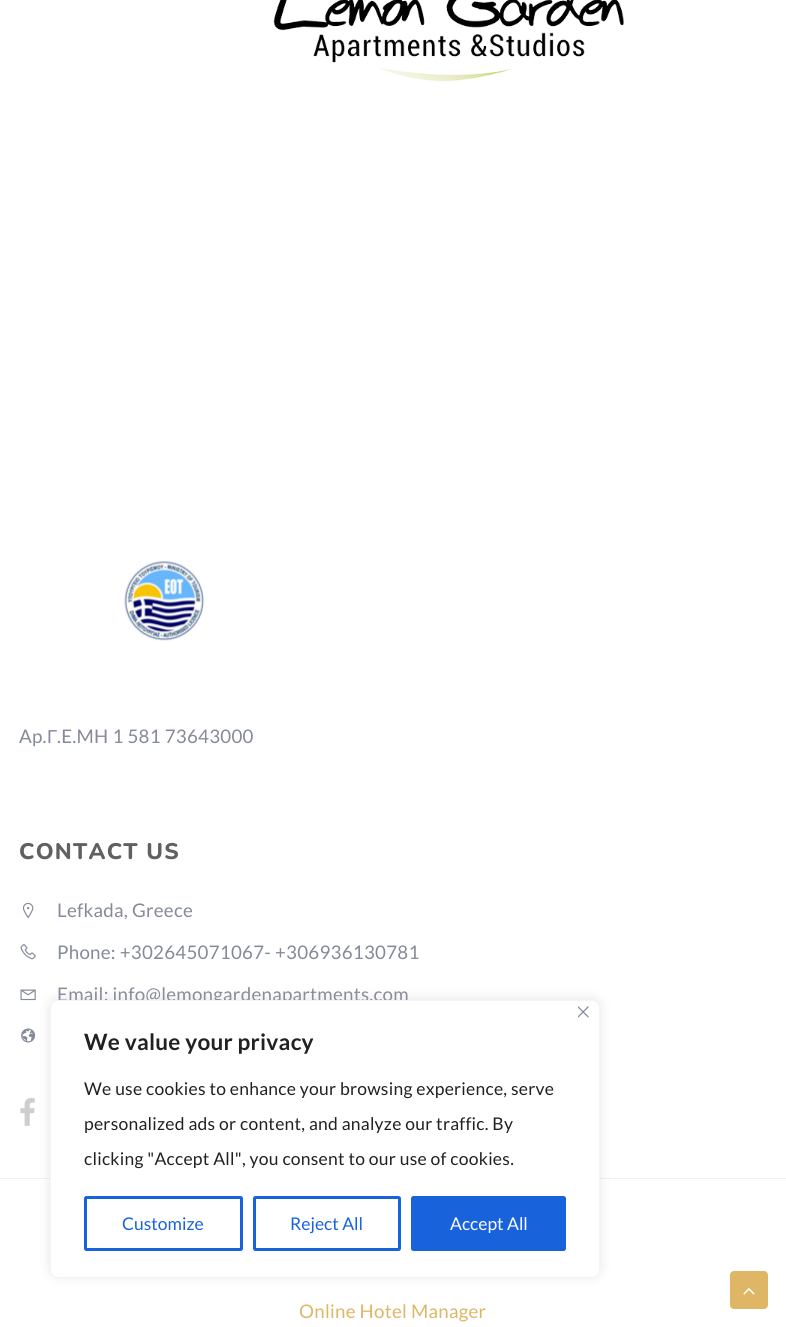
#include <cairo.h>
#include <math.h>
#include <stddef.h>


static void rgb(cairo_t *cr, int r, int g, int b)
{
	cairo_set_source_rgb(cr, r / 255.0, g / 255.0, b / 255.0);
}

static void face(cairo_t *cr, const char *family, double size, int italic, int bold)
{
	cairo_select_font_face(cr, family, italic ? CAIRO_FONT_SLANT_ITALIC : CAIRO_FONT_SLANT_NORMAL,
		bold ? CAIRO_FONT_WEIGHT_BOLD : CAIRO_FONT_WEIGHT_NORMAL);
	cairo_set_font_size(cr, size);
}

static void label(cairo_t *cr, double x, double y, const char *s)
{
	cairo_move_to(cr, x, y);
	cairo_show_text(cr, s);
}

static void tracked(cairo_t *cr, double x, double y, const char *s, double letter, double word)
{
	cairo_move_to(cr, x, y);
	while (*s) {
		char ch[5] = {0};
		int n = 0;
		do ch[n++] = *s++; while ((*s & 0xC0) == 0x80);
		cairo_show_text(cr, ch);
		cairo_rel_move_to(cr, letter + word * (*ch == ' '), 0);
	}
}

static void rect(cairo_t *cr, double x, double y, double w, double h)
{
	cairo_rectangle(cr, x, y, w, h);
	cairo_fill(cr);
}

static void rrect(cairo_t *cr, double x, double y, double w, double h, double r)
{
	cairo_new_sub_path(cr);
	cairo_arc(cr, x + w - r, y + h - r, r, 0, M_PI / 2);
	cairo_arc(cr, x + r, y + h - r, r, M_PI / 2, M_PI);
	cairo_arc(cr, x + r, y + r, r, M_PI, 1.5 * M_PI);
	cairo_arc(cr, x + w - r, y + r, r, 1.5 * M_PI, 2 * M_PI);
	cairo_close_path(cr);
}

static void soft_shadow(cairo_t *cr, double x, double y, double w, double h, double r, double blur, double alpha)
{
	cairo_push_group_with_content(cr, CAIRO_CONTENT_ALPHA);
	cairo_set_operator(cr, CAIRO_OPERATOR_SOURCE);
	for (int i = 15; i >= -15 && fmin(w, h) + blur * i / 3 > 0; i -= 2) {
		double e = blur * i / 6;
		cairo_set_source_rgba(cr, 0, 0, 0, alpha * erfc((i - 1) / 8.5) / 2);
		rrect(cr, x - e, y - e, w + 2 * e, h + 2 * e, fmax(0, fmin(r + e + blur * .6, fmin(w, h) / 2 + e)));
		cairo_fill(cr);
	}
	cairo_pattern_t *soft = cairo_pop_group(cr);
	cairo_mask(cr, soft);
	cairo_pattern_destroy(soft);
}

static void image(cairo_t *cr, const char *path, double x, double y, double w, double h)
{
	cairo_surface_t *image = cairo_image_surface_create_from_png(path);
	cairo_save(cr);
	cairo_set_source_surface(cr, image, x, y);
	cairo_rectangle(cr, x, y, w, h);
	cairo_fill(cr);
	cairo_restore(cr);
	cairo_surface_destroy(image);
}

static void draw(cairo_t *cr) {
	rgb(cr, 255, 255, 255);
	cairo_paint(cr);
	rgb(cr, 240, 240, 240);
	rect(cr, 0, 1178, 786, 1);
	image(cr, "image0.png", 273, 0, 351, 82);
	image(cr, "image1.png", 124, 561, 80, 80);
	face(cr, "Lato", 18.75, 0, 0);
	rgb(cr, 133, 138, 153);
	tracked(cr, 19, 743, "Ap.", 0.25, 0);
	face(cr, "Liberation Sans", 18.75, 0, 0);
	tracked(cr, 47, 743, "Γ", 0.25, 0);
	face(cr, "Lato", 18.75, 0, 0);
	tracked(cr, 57, 743, ".E.MH 1 581 73643000", 0.25, 0);
	face(cr, "Nunito ExtraBold", 22.5, 0, 0);
	rgb(cr, 96, 96, 96);
	tracked(cr, 19, 859, "CONTACT US", 1.25, 0);
	image(cr, "image2.png", 22, 902, 12, 17);
	face(cr, "Lato", 18.75, 0, 0);
	rgb(cr, 133, 138, 153);
	tracked(cr, 57, 917, "Lefkada, Greece", 0.25, 0);
	image(cr, "image3.png", 20, 944, 16, 16);
	tracked(cr, 57, 959, "Phone: +302645071067- +306936130781", 0.25, 0);
	image(cr, "image4.png", 20, 989, 16, 12);
	tracked(cr, 57, 1001, "Email: info@lemongardenapartments.com", 0.25, 0);
	image(cr, "image5.png", 21, 1028, 15, 15);
	image(cr, "image6.png", 20, 1098, 15, 28);
	rgb(cr, 222, 182, 102);
	tracked(cr, 299, 1318, "Online Hotel Manager", 0.25, 0);
	rrect(cr, 730, 1271, 38, 38, 4);
	cairo_fill(cr);
	image(cr, "image7.png", 743, 1288, 12, 7);
	rgb(cr, 172, 171, 171);
	soft_shadow(cr, 50, 999, 550, 277, 8, 6, 0.3);
	rgb(cr, 255, 255, 255);
	rrect(cr, 50.5, 1000.5, 549, 277, 7.5);
	cairo_fill_preserve(cr);
	rgb(cr, 244, 244, 244);
	cairo_set_line_width(cr, 1);
	cairo_stroke(cr);
	image(cr, "image8.png", 578, 1006, 11, 12);
	face(cr, "Lato", 22.5, 0, 1);
	rgb(cr, 33, 33, 33);
	tracked(cr, 84, 1050, "We value your privacy", 0.25, 0);
	face(cr, "Lato", 17.5, 0, 0);
	tracked(cr, 84, 1095, "We use cookies to enhance your browsing experience, serve", 0.25, 0);
	tracked(cr, 84, 1130, "personalized ads or content, and analyze our traffic. By", 0.25, 0);
	tracked(cr, 84, 1165, "clicking \"Accept All\", you consent to our use of cookies.", 0.25, 0);
	rrect(cr, 85.5, 1197.5, 156, 52, 1);
	rgb(cr, 24, 99, 220);
	cairo_set_line_width(cr, 3);
	cairo_stroke(cr);
	label(cr, 122, 1230, "Customize");
	rrect(cr, 254.5, 1197.5, 145, 52, 1);
	cairo_stroke(cr);
	label(cr, 290, 1230, "Reject All");
	rrect(cr, 412.5, 1197.5, 152, 52, 1);
	cairo_fill_preserve(cr);
	cairo_stroke(cr);
	rgb(cr, 255, 255, 255);
	label(cr, 450, 1230, "Accept All");
}

int main(void) {
	cairo_surface_t *surface = cairo_image_surface_create(CAIRO_FORMAT_RGB24, 786, 1327);
	cairo_t *cr = cairo_create(surface);
	cairo_font_options_t *options = cairo_font_options_create();
	cairo_font_options_set_hint_metrics(options, CAIRO_HINT_METRICS_OFF);
	cairo_font_options_set_hint_style(options, CAIRO_HINT_STYLE_NONE);
	cairo_set_font_options(cr, options);
	cairo_set_miter_limit(cr, 4);
	draw(cr);
	cairo_surface_write_to_png(surface, "render.png");
	cairo_font_options_destroy(options);
	cairo_destroy(cr);
	cairo_surface_destroy(surface);
	return 0;
}
